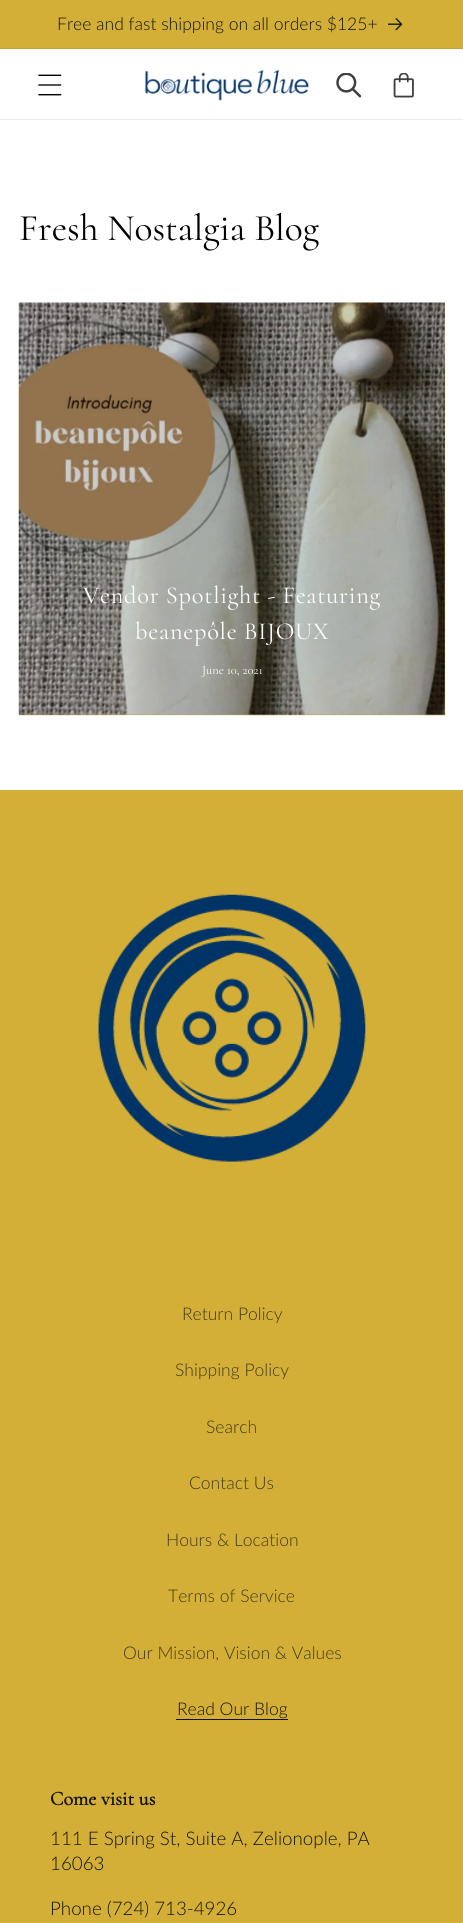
#include <cairo.h>
#include <math.h>
#include <stddef.h>


static void rgb(cairo_t *cr, int r, int g, int b)
{
	cairo_set_source_rgb(cr, r / 255.0, g / 255.0, b / 255.0);
}

static void face(cairo_t *cr, const char *family, double size, int italic, int bold)
{
	cairo_select_font_face(cr, family, italic ? CAIRO_FONT_SLANT_ITALIC : CAIRO_FONT_SLANT_NORMAL,
		bold ? CAIRO_FONT_WEIGHT_BOLD : CAIRO_FONT_WEIGHT_NORMAL);
	cairo_set_font_size(cr, size);
}

static void label(cairo_t *cr, double x, double y, const char *s)
{
	cairo_move_to(cr, x, y);
	cairo_show_text(cr, s);
}

static void tracked(cairo_t *cr, double x, double y, const char *s, double letter, double word)
{
	cairo_move_to(cr, x, y);
	while (*s) {
		char ch[5] = {0};
		int n = 0;
		do ch[n++] = *s++; while ((*s & 0xC0) == 0x80);
		cairo_show_text(cr, ch);
		cairo_rel_move_to(cr, letter + word * (*ch == ' '), 0);
	}
}

static void rect(cairo_t *cr, double x, double y, double w, double h)
{
	cairo_rectangle(cr, x, y, w, h);
	cairo_fill(cr);
}

static void image(cairo_t *cr, const char *path, double x, double y, double w, double h)
{
	cairo_surface_t *image = cairo_image_surface_create_from_png(path);
	cairo_save(cr);
	cairo_set_source_surface(cr, image, x, y);
	cairo_rectangle(cr, x, y, w, h);
	cairo_fill(cr);
	cairo_restore(cr);
	cairo_surface_destroy(image);
}

static void draw(cairo_t *cr) {
	rgb(cr, 255, 255, 255);
	cairo_paint(cr);
	rgb(cr, 212, 175, 55);
	rect(cr, 0, 0, 463, 48);
	rgb(cr, 196, 162, 52);
	rect(cr, 0, 48, 463, 1);
	face(cr, "Lato Light", 17.5, 0, 0);
	rgb(cr, 18, 18, 18);
	label(cr, 57, 30, "Free and fast shipping on all orders $125+");
	image(cr, "image0.png", 388, 18, 15, 13);
	rgb(cr, 235, 235, 235);
	rect(cr, 0, 119, 463, 1);
	image(cr, "image1.png", 38, 74, 24, 22);
	image(cr, "image2.png", 145, 69, 164, 32);
	image(cr, "image3.png", 336, 73, 25, 25);
	image(cr, "image4.png", 393, 73, 21, 25);
	face(cr, "Cormorant", 37.5, 0, 0);
	rgb(cr, 0, 0, 0);
	label(cr, 19, 240, "Fresh Nostalgia Blog");
	rgb(cr, 192, 159, 51);
	rect(cr, 19, 303, 426, 412);
	image(cr, "image5.png", 18, 302, 428, 414);
	face(cr, "Cormorant", 24.4, 0, 0);
	rgb(cr, 255, 255, 255);
	tracked(cr, 83, 603, "Vendor Spotlight - Featuring", 0.75, 0);
	tracked(cr, 135, 639, "beanepôle BIJOUX", 0.75, 0);
	face(cr, "Cormorant", 12.5, 0, 0);
	label(cr, 202, 674, "June 10, 2021");
	rgb(cr, 212, 175, 55);
	rect(cr, 0, 790, 463, 1133);
	image(cr, "image6.png", 98, 894, 268, 268);
	face(cr, "Lato Light", 17.5, 0, 0);
	rgb(cr, 67, 57, 27);
	label(cr, 182, 1320, "Return Policy");
	label(cr, 175, 1376, "Shipping Policy");
	label(cr, 206, 1433, "Search");
	label(cr, 189, 1489, "Contact Us");
	label(cr, 166, 1546, "Hours & Location");
	label(cr, 168, 1602, "Terms of Service");
	label(cr, 123, 1659, "Our Mission, Vision & Values");
	rgb(cr, 18, 18, 18);
	label(cr, 177, 1715, "Read Our Blog");
	rect(cr, 176, 1719, 112, 1);
	face(cr, "Cormorant", 20, 0, 1);
	label(cr, 50, 1805, "Come visit us");
	face(cr, "Lato Light", 18.75, 0, 0);
	label(cr, 50, 1845, "111 E Spring St, Suite A, Zelionople, PA");
	label(cr, 50, 1870, "16063");
	label(cr, 50, 1915, "Phone (724) 713-4926");
}

int main(void) {
	cairo_surface_t *surface = cairo_image_surface_create(CAIRO_FORMAT_RGB24, 463, 1923);
	cairo_t *cr = cairo_create(surface);
	cairo_font_options_t *options = cairo_font_options_create();
	cairo_font_options_set_hint_metrics(options, CAIRO_HINT_METRICS_OFF);
	cairo_font_options_set_hint_style(options, CAIRO_HINT_STYLE_NONE);
	cairo_set_font_options(cr, options);
	cairo_set_miter_limit(cr, 4);
	draw(cr);
	cairo_surface_write_to_png(surface, "render.png");
	cairo_font_options_destroy(options);
	cairo_destroy(cr);
	cairo_surface_destroy(surface);
	return 0;
}
